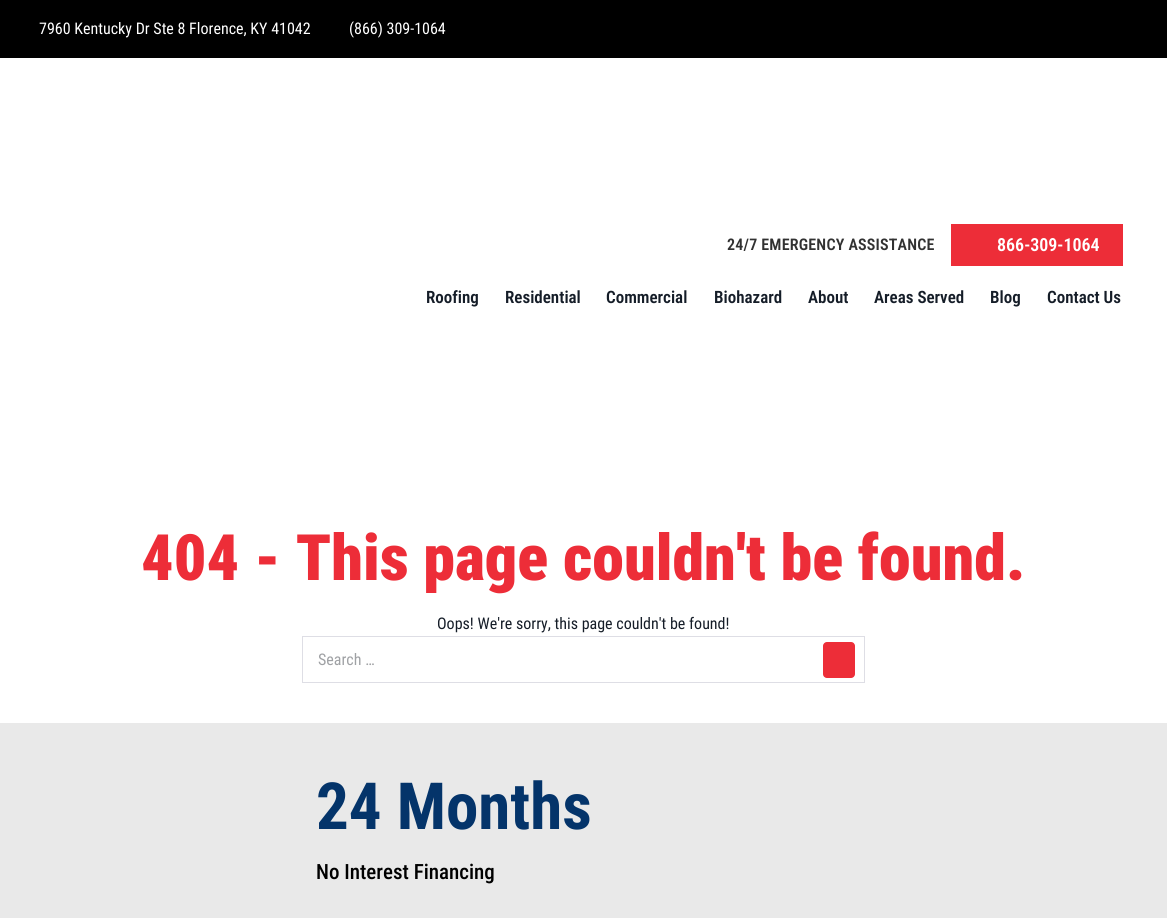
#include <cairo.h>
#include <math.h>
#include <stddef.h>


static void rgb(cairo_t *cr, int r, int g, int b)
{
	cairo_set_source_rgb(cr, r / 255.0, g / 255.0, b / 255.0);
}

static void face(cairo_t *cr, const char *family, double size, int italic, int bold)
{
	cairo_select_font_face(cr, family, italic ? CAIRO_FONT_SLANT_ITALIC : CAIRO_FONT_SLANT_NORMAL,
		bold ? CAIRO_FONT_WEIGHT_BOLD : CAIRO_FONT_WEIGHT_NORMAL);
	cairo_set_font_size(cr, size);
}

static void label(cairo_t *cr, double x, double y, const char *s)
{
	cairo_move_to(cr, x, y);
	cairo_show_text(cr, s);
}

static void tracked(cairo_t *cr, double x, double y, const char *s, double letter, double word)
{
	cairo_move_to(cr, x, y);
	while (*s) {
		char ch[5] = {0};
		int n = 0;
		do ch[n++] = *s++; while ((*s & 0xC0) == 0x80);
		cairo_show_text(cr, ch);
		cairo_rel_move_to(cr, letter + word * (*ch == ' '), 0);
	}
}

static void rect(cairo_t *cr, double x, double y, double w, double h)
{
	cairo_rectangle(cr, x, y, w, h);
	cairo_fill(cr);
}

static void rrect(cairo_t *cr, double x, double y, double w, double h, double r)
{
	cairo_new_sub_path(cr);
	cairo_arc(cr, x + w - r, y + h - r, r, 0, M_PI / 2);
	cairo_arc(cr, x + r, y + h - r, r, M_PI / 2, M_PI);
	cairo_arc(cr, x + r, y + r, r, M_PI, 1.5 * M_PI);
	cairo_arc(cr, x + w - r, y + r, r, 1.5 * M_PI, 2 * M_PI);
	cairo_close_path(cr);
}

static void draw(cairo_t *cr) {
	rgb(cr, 255, 255, 255);
	cairo_paint(cr);
	rgb(cr, 0, 0, 0);
	rect(cr, 0, 0, 1167, 58);
	face(cr, "Roboto Condensed", 16, 0, 0);
	rgb(cr, 255, 255, 255);
	label(cr, 39, 34, "7960 Kentucky Dr Ste 8 Florence, KY 41042");
	label(cr, 349, 34, "(866) 309-1064");
	face(cr, "Roboto Condensed SemiBold", 16, 0, 0);
	rgb(cr, 49, 49, 49);
	tracked(cr, 727, 250, "24/7 EMERGENCY ASSISTANCE", 0.2, 0);
	rgb(cr, 237, 45, 56);
	rect(cr, 951, 224, 172, 42);
	face(cr, "Roboto Condensed SemiBold", 18, 0, 0);
	rgb(cr, 255, 255, 255);
	label(cr, 997, 251, "866-309-1064");
	face(cr, "Roboto Condensed SemiBold", 17, 0, 0);
	rgb(cr, 21, 29, 40);
	label(cr, 426, 303, "Roofing");
	label(cr, 505, 303, "Residential");
	label(cr, 606, 303, "Commercial");
	label(cr, 714, 303, "Biohazard");
	label(cr, 808, 303, "About");
	label(cr, 874, 303, "Areas Served");
	label(cr, 990, 303, "Blog");
	label(cr, 1047, 303, "Contact Us");
	face(cr, "Roboto Condensed Black", 64, 0, 0);
	rgb(cr, 237, 45, 56);
	label(cr, 141, 580, "404 - This page couldn't be found.");
	face(cr, "Roboto Condensed", 16, 0, 0);
	rgb(cr, 21, 29, 40);
	label(cr, 437, 629, "Oops! We're sorry, this page couldn't be found!");
	cairo_rectangle(cr, 302.5, 636.5, 562, 46);
	rgb(cr, 222, 222, 229);
	cairo_set_line_width(cr, 1);
	cairo_stroke(cr);
	rgb(cr, 159, 161, 164);
	label(cr, 318, 665, "Search …");
	rgb(cr, 237, 45, 56);
	rrect(cr, 823, 642, 32, 36, 4);
	cairo_fill(cr);
	rgb(cr, 233, 233, 233);
	rect(cr, 0, 723, 1167, 195);
	face(cr, "Roboto Condensed", 65, 0, 1);
	rgb(cr, 4, 52, 106);
	label(cr, 316, 829, "24 Months");
	face(cr, "Roboto Condensed Medium", 21, 0, 0);
	rgb(cr, 0, 0, 0);
	label(cr, 316, 879, "No Interest Financing");
}

int main(void) {
	cairo_surface_t *surface = cairo_image_surface_create(CAIRO_FORMAT_RGB24, 1167, 918);
	cairo_t *cr = cairo_create(surface);
	cairo_font_options_t *options = cairo_font_options_create();
	cairo_font_options_set_hint_metrics(options, CAIRO_HINT_METRICS_OFF);
	cairo_font_options_set_hint_style(options, CAIRO_HINT_STYLE_NONE);
	cairo_set_font_options(cr, options);
	cairo_set_miter_limit(cr, 4);
	draw(cr);
	cairo_surface_write_to_png(surface, "render.png");
	cairo_font_options_destroy(options);
	cairo_destroy(cr);
	cairo_surface_destroy(surface);
	return 0;
}
